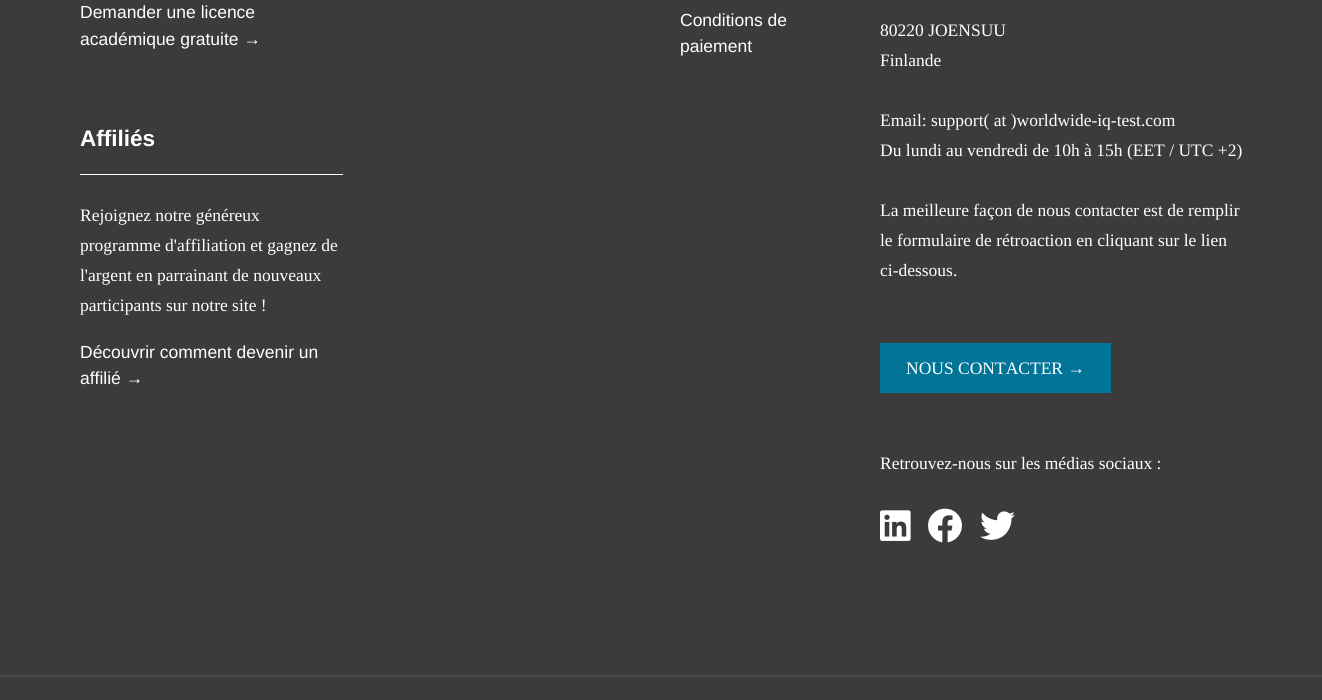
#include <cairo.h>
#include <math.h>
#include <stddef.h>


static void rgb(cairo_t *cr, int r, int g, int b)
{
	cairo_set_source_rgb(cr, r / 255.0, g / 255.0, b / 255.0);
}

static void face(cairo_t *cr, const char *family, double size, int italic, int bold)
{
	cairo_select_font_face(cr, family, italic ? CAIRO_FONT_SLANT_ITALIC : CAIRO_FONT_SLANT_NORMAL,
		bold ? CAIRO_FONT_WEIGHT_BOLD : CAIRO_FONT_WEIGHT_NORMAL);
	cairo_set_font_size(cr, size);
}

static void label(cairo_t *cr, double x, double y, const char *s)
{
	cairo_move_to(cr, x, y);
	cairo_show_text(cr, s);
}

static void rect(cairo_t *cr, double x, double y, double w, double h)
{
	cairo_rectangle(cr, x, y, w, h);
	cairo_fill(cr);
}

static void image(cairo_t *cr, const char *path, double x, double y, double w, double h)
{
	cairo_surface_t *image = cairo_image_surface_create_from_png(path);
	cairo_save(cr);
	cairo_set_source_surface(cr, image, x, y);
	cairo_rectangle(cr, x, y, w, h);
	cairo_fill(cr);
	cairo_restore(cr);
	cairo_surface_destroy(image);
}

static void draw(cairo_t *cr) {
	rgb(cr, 59, 59, 59);
	cairo_paint(cr);
	face(cr, "Liberation Sans", 17.5, 0, 0);
	rgb(cr, 255, 255, 255);
	label(cr, 80, 18, "Demander une licence");
	label(cr, 80, 45, "académique gratuite →");
	rect(cr, 80, 174, 263, 1);
	face(cr, "Liberation Sans", 22.5, 0, 1);
	label(cr, 80, 146, "Affiliés");
	face(cr, "Liberation Serif", 17.5, 0, 0);
	label(cr, 80, 221, "Rejoignez notre généreux");
	label(cr, 80, 251, "programme d'affiliation et gagnez de");
	label(cr, 80, 281, "l'argent en parrainant de nouveaux");
	label(cr, 80, 311, "participants sur notre site !");
	face(cr, "Liberation Sans", 17.5, 0, 0);
	label(cr, 80, 358, "Découvrir comment devenir un");
	label(cr, 80, 384, "affilié →");
	label(cr, 680, 26, "Conditions de");
	label(cr, 680, 52, "paiement");
	face(cr, "Liberation Serif", 17.5, 0, 0);
	label(cr, 880, 36, "80220 JOENSUU");
	label(cr, 880, 66, "Finlande");
	label(cr, 880, 126, "Email: support( at )worldwide-iq-test.com");
	label(cr, 880, 156, "Du lundi au vendredi de 10h à 15h (EET / UTC +2)");
	label(cr, 880, 216, "La meilleure façon de nous contacter est de remplir");
	label(cr, 880, 246, "le formulaire de rétroaction en cliquant sur le lien");
	label(cr, 880, 276, "ci-dessous.");
	rgb(cr, 0, 117, 152);
	rect(cr, 880, 343, 231, 50);
	rgb(cr, 255, 255, 255);
	label(cr, 906, 374, "NOUS CONTACTER →");
	label(cr, 880, 469, "Retrouvez-nous sur les médias sociaux :");
	image(cr, "image0.png", 880, 510, 31, 31);
	image(cr, "image1.png", 928, 508, 34, 35);
	image(cr, "image2.png", 980, 511, 35, 29);
	rgb(cr, 69, 69, 69);
	rect(cr, 0, 675, 1322, 2);
	rgb(cr, 62, 62, 62);
	rect(cr, 0, 674, 1322, 1);
}

int main(void) {
	cairo_surface_t *surface = cairo_image_surface_create(CAIRO_FORMAT_RGB24, 1322, 700);
	cairo_t *cr = cairo_create(surface);
	cairo_font_options_t *options = cairo_font_options_create();
	cairo_font_options_set_hint_metrics(options, CAIRO_HINT_METRICS_OFF);
	cairo_font_options_set_hint_style(options, CAIRO_HINT_STYLE_NONE);
	cairo_set_font_options(cr, options);
	cairo_set_miter_limit(cr, 4);
	draw(cr);
	cairo_surface_write_to_png(surface, "render.png");
	cairo_font_options_destroy(options);
	cairo_destroy(cr);
	cairo_surface_destroy(surface);
	return 0;
}
